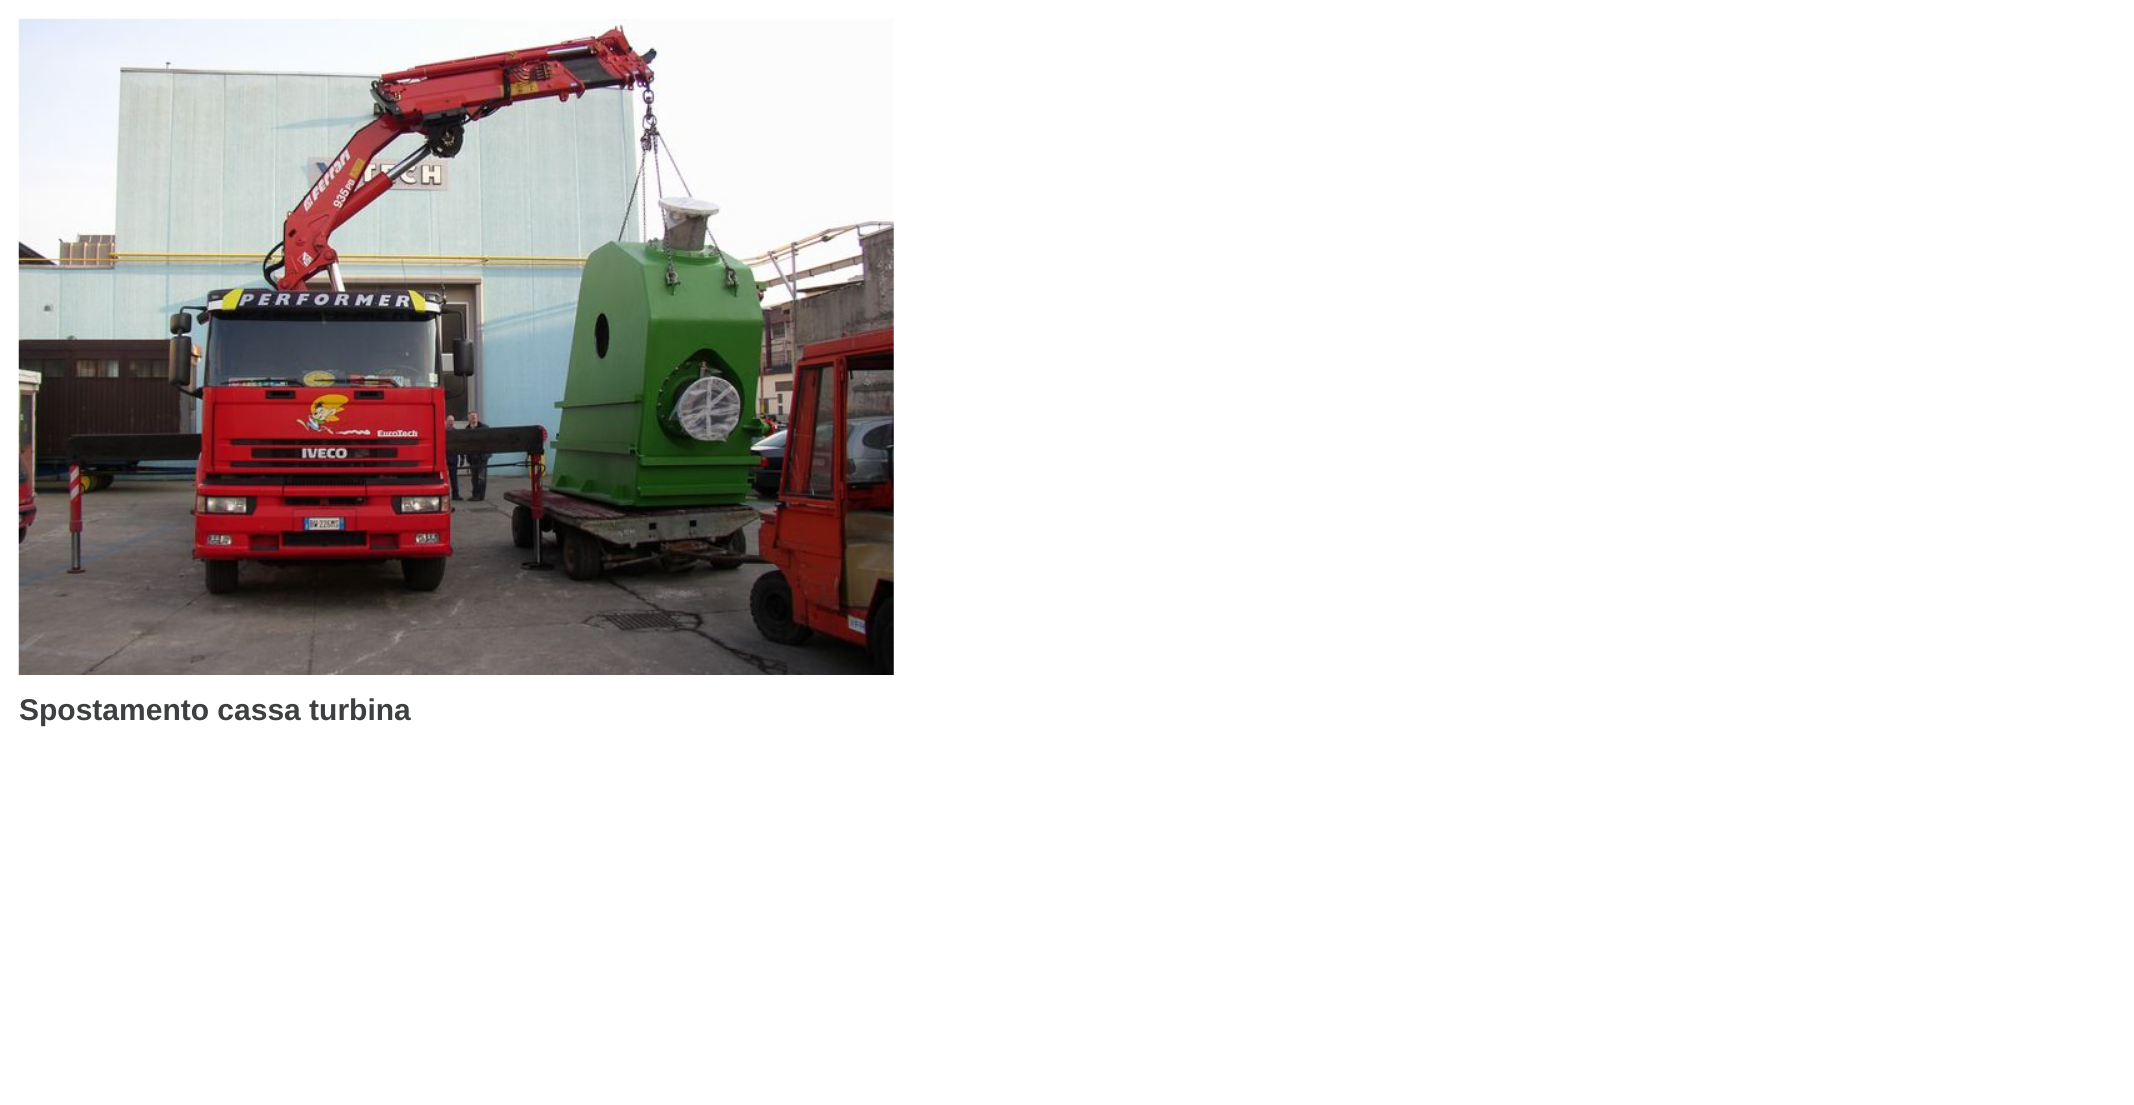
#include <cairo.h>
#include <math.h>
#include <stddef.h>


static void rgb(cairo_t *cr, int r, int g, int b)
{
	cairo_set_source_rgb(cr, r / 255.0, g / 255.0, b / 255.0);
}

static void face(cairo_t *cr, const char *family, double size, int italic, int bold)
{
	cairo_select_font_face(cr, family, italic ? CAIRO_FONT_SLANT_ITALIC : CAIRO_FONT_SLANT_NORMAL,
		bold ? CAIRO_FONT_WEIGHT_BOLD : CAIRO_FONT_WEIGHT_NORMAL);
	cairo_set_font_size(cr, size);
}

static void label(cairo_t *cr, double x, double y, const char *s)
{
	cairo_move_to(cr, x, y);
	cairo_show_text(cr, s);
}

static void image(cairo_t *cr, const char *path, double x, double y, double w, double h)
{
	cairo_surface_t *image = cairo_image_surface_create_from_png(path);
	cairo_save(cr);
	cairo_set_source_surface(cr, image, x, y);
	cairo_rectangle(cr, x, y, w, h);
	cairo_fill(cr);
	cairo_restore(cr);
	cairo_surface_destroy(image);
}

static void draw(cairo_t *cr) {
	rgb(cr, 255, 255, 255);
	cairo_paint(cr);
	image(cr, "image0.png", 18, 18, 876, 657);
	face(cr, "Liberation Sans", 30, 0, 1);
	rgb(cr, 62, 63, 64);
	label(cr, 19, 720, "Spostamento cassa turbina");
}

int main(void) {
	cairo_surface_t *surface = cairo_image_surface_create(CAIRO_FORMAT_RGB24, 2134, 1105);
	cairo_t *cr = cairo_create(surface);
	cairo_font_options_t *options = cairo_font_options_create();
	cairo_font_options_set_hint_metrics(options, CAIRO_HINT_METRICS_OFF);
	cairo_font_options_set_hint_style(options, CAIRO_HINT_STYLE_NONE);
	cairo_set_font_options(cr, options);
	cairo_set_miter_limit(cr, 4);
	draw(cr);
	cairo_surface_write_to_png(surface, "render.png");
	cairo_font_options_destroy(options);
	cairo_destroy(cr);
	cairo_surface_destroy(surface);
	return 0;
}
